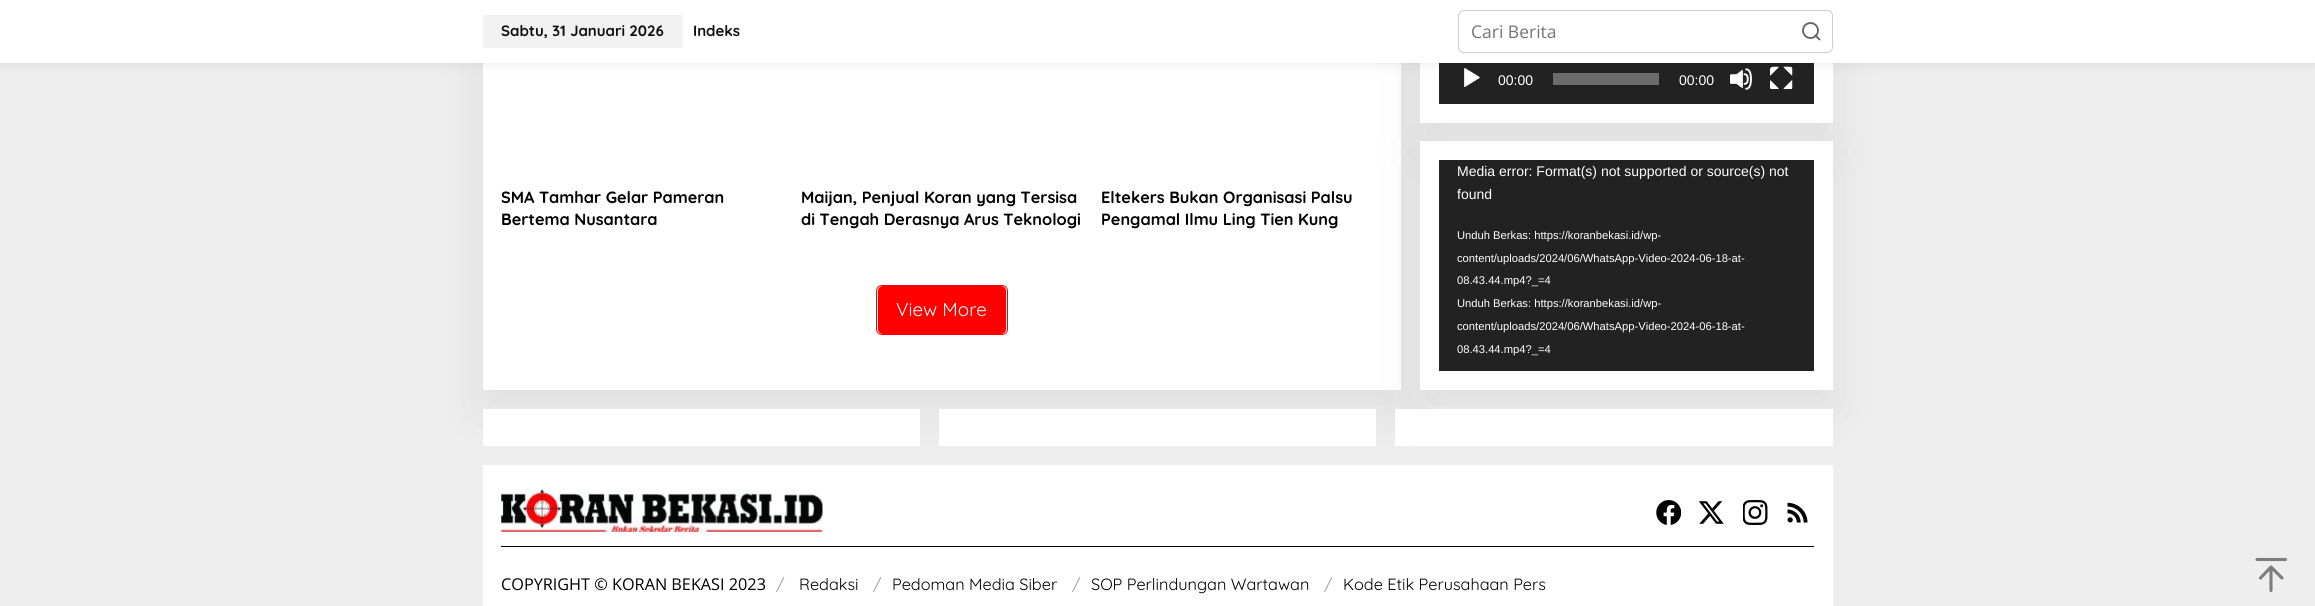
#include <cairo.h>
#include <math.h>
#include <stddef.h>


static void rgb(cairo_t *cr, int r, int g, int b)
{
	cairo_set_source_rgb(cr, r / 255.0, g / 255.0, b / 255.0);
}

static void face(cairo_t *cr, const char *family, double size, int italic, int bold)
{
	cairo_select_font_face(cr, family, italic ? CAIRO_FONT_SLANT_ITALIC : CAIRO_FONT_SLANT_NORMAL,
		bold ? CAIRO_FONT_WEIGHT_BOLD : CAIRO_FONT_WEIGHT_NORMAL);
	cairo_set_font_size(cr, size);
}

static void label(cairo_t *cr, double x, double y, const char *s)
{
	cairo_move_to(cr, x, y);
	cairo_show_text(cr, s);
}

static void rect(cairo_t *cr, double x, double y, double w, double h)
{
	cairo_rectangle(cr, x, y, w, h);
	cairo_fill(cr);
}

static void rrect(cairo_t *cr, double x, double y, double w, double h, double r)
{
	cairo_new_sub_path(cr);
	cairo_arc(cr, x + w - r, y + h - r, r, 0, M_PI / 2);
	cairo_arc(cr, x + r, y + h - r, r, M_PI / 2, M_PI);
	cairo_arc(cr, x + r, y + r, r, M_PI, 1.5 * M_PI);
	cairo_arc(cr, x + w - r, y + r, r, 1.5 * M_PI, 2 * M_PI);
	cairo_close_path(cr);
}

static void soft_shadow(cairo_t *cr, double x, double y, double w, double h, double r, double blur, double alpha)
{
	cairo_push_group_with_content(cr, CAIRO_CONTENT_ALPHA);
	cairo_set_operator(cr, CAIRO_OPERATOR_SOURCE);
	for (int i = 15; i >= -15 && fmin(w, h) + blur * i / 3 > 0; i -= 2) {
		double e = blur * i / 6;
		cairo_set_source_rgba(cr, 0, 0, 0, alpha * erfc((i - 1) / 8.5) / 2);
		rrect(cr, x - e, y - e, w + 2 * e, h + 2 * e, fmax(0, fmin(r + e + blur * .6, fmin(w, h) / 2 + e)));
		cairo_fill(cr);
	}
	cairo_pattern_t *soft = cairo_pop_group(cr);
	cairo_mask(cr, soft);
	cairo_pattern_destroy(soft);
}

static void image(cairo_t *cr, const char *path, double x, double y, double w, double h)
{
	cairo_surface_t *image = cairo_image_surface_create_from_png(path);
	cairo_save(cr);
	cairo_set_source_surface(cr, image, x, y);
	cairo_rectangle(cr, x, y, w, h);
	cairo_fill(cr);
	cairo_restore(cr);
	cairo_surface_destroy(image);
}

static void draw(cairo_t *cr) {
	rgb(cr, 238, 238, 238);
	cairo_paint(cr);
	rgb(cr, 0, 0, 0);
	soft_shadow(cr, 483, -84, 918, 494, 0, 28, 0.07);
	rgb(cr, 255, 255, 255);
	rect(cr, 483, 63, 918, 327);
	rgb(cr, 0, 0, 0);
	soft_shadow(cr, 1420, -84, 413, 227, 0, 28, 0.07);
	rgb(cr, 255, 255, 255);
	rect(cr, 1420, 63, 413, 60);
	rgb(cr, 0, 0, 0);
	soft_shadow(cr, 1420, 161, 413, 249, 0, 28, 0.07);
	rgb(cr, 34, 34, 34);
	rect(cr, 1439, 63, 375, 41);
	image(cr, "image0.png", 1464, 68, 16, 19);
	rgb(cr, 107, 107, 107);
	rect(cr, 1553, 73, 106, 12);
	image(cr, "image1.png", 1730, 68, 22, 22);
	image(cr, "image2.png", 1770, 66, 23, 23);
	rgb(cr, 0, 0, 0);
	soft_shadow(cr, 0, 0, 2315, 63, 0, 6, 0.1);
	rgb(cr, 255, 255, 255);
	rect(cr, 0, 0, 2315, 63);
	rgb(cr, 242, 242, 242);
	rect(cr, 483, 15, 200, 33);
	face(cr, "Quicksand", 15, 0, 1);
	rgb(cr, 17, 17, 17);
	label(cr, 501, 36, "Sabtu, 31 Januari 2026");
	label(cr, 693, 36, "Indeks");
	rrect(cr, 1458.5, 10.5, 374, 42, 5.5);
	rgb(cr, 204, 204, 204);
	cairo_set_line_width(cr, 1);
	cairo_stroke(cr);
	face(cr, "Open Sans", 17.5, 0, 0);
	rgb(cr, 117, 117, 117);
	label(cr, 1471, 38, "Cari Berita");
	cairo_new_path(cr);
	cairo_arc(cr, 1810.5, 30.5, 7.5, 0, 2 * M_PI);
	rgb(cr, 102, 102, 102);
	cairo_set_line_width(cr, 1.9);
	cairo_stroke(cr);
	cairo_new_path(cr);
	cairo_move_to(cr, 1819.5, 39.5);
	cairo_line_to(cr, 1815.5, 35.5);
	cairo_set_line_cap(cr, CAIRO_LINE_CAP_ROUND);
	cairo_set_line_join(cr, CAIRO_LINE_JOIN_ROUND);
	cairo_stroke(cr);
	face(cr, "Quicksand", 16.25, 0, 1);
	rgb(cr, 0, 0, 0);
	label(cr, 501, 203, "SMA Tamhar Gelar Pameran");
	label(cr, 501, 225, "Bertema Nusantara");
	label(cr, 801, 203, "Maijan, Penjual Koran yang Tersisa");
	label(cr, 801, 225, "di Tengah Derasnya Arus Teknologi");
	label(cr, 1101, 203, "Eltekers Bukan Organisasi Palsu");
	label(cr, 1101, 225, "Pengamal Ilmu Ling Tien Kung");
	rgb(cr, 255, 0, 0);
	rrect(cr, 878, 286, 128, 48, 5);
	cairo_fill(cr);
	rrect(cr, 876.5, 285.5, 131, 49, 5.5);
	cairo_set_line_width(cr, 1);
	cairo_set_line_cap(cr, CAIRO_LINE_CAP_BUTT);
	cairo_set_line_join(cr, CAIRO_LINE_JOIN_MITER);
	cairo_stroke(cr);
	face(cr, "Quicksand", 18.75, 0, 0);
	rgb(cr, 255, 255, 255);
	label(cr, 896, 316, "View More");
	face(cr, "Liberation Sans", 14, 0, 0);
	label(cr, 1498, 85, "00:00");
	label(cr, 1679, 85, "00:00");
	rect(cr, 1420, 141, 413, 249);
	rgb(cr, 34, 34, 34);
	rect(cr, 1439, 160, 375, 211);
	rgb(cr, 255, 255, 255);
	label(cr, 1457, 176, "Media error: Format(s) not supported or source(s) not");
	label(cr, 1457, 199, "found");
	face(cr, "Liberation Sans", 11.2, 0, 0);
	label(cr, 1457, 239, "Unduh Berkas: https://koranbekasi.id/wp-");
	label(cr, 1457, 262, "content/uploads/2024/06/WhatsApp-Video-2024-06-18-at-");
	label(cr, 1457, 284, "08.43.44.mp4?_=4");
	label(cr, 1457, 307, "Unduh Berkas: https://koranbekasi.id/wp-");
	label(cr, 1457, 330, "content/uploads/2024/06/WhatsApp-Video-2024-06-18-at-");
	label(cr, 1457, 353, "08.43.44.mp4?_=4");
	rect(cr, 483, 409, 437, 37);
	rect(cr, 939, 409, 437, 37);
	rect(cr, 1395, 409, 438, 37);
	rect(cr, 483, 465, 1350, 141);
	rgb(cr, 0, 0, 0);
	rect(cr, 501, 546, 1313, 1);
	image(cr, "image3.png", 501, 489, 322, 43);
	image(cr, "image4.png", 1656, 500, 25, 25);
	image(cr, "image5.png", 1699, 501, 25, 23);
	image(cr, "image6.png", 1743, 500, 25, 25);
	image(cr, "image7.png", 1787, 502, 21, 21);
	face(cr, "Open Sans", 16.25, 0, 0);
	label(cr, 501, 590, "COPYRIGHT © KORAN BEKASI 2023");
	face(cr, "Quicksand", 16.25, 0, 0);
	rgb(cr, 153, 153, 153);
	label(cr, 776, 590, "/");
	rgb(cr, 0, 0, 0);
	label(cr, 799, 590, "Redaksi");
	rgb(cr, 153, 153, 153);
	label(cr, 873, 590, "/");
	rgb(cr, 0, 0, 0);
	label(cr, 892, 590, "Pedoman Media Siber");
	rgb(cr, 153, 153, 153);
	label(cr, 1072, 590, "/");
	rgb(cr, 0, 0, 0);
	label(cr, 1091, 590, "SOP Perlindungan Wartawan");
	rgb(cr, 153, 153, 153);
	label(cr, 1324, 590, "/");
	rgb(cr, 0, 0, 0);
	label(cr, 1343, 590, "Kode Etik Perusahaan Pers");
	cairo_new_path(cr);
	cairo_move_to(cr, 2271, 590.5);
	cairo_line_to(cr, 2271, 567);
	cairo_move_to(cr, 2260.5, 578);
	cairo_line_to(cr, 2271, 567);
	cairo_line_to(cr, 2282, 578);
	cairo_move_to(cr, 2257, 559.5);
	cairo_line_to(cr, 2285.5, 559.5);
	rgb(cr, 125, 125, 126);
	cairo_set_line_width(cr, 3.1);
	cairo_set_line_cap(cr, CAIRO_LINE_CAP_ROUND);
	cairo_set_line_join(cr, CAIRO_LINE_JOIN_ROUND);
	cairo_stroke(cr);
}

int main(void) {
	cairo_surface_t *surface = cairo_image_surface_create(CAIRO_FORMAT_RGB24, 2315, 606);
	cairo_t *cr = cairo_create(surface);
	cairo_font_options_t *options = cairo_font_options_create();
	cairo_font_options_set_hint_metrics(options, CAIRO_HINT_METRICS_OFF);
	cairo_font_options_set_hint_style(options, CAIRO_HINT_STYLE_NONE);
	cairo_set_font_options(cr, options);
	cairo_set_miter_limit(cr, 4);
	draw(cr);
	cairo_surface_write_to_png(surface, "render.png");
	cairo_font_options_destroy(options);
	cairo_destroy(cr);
	cairo_surface_destroy(surface);
	return 0;
}
